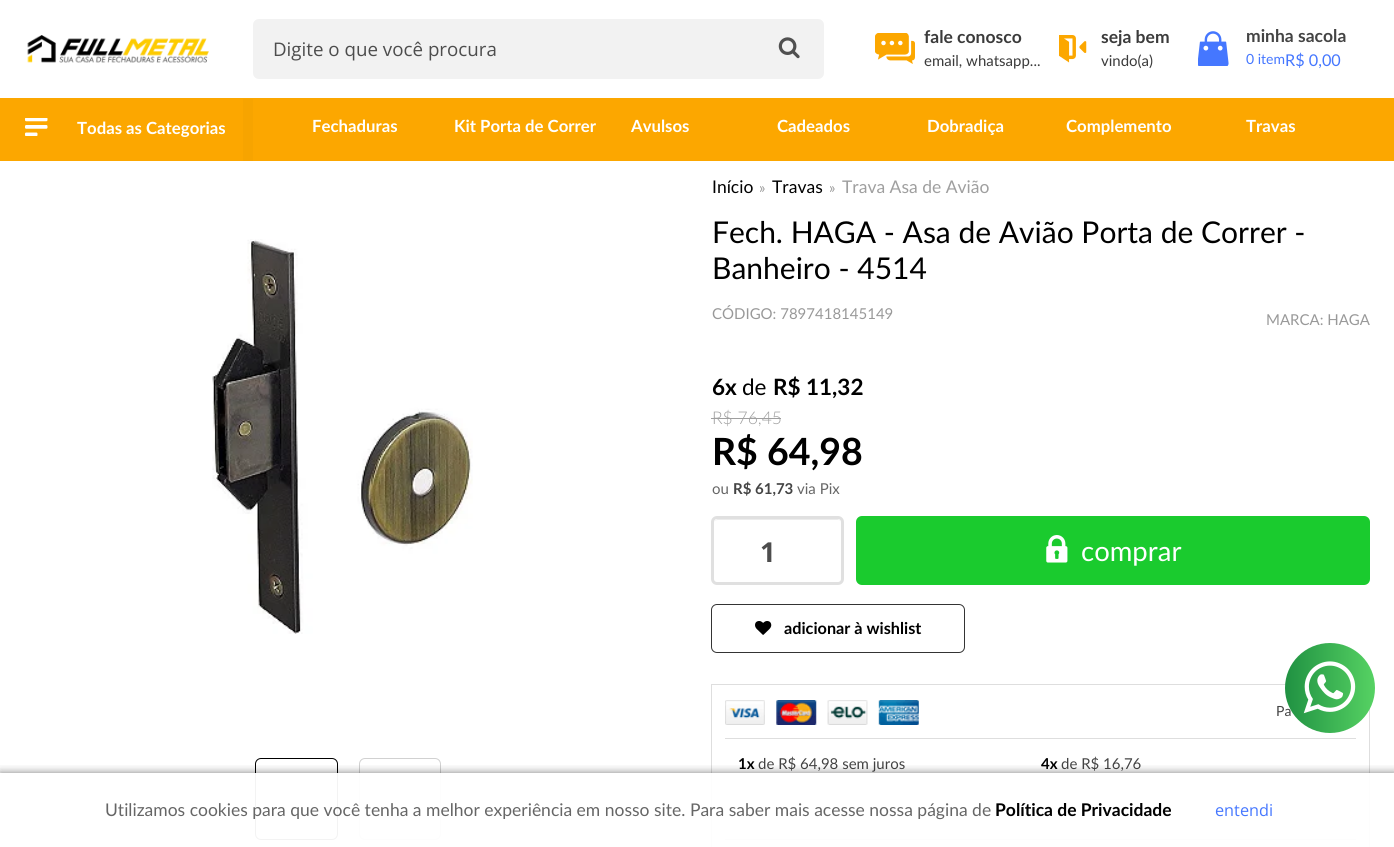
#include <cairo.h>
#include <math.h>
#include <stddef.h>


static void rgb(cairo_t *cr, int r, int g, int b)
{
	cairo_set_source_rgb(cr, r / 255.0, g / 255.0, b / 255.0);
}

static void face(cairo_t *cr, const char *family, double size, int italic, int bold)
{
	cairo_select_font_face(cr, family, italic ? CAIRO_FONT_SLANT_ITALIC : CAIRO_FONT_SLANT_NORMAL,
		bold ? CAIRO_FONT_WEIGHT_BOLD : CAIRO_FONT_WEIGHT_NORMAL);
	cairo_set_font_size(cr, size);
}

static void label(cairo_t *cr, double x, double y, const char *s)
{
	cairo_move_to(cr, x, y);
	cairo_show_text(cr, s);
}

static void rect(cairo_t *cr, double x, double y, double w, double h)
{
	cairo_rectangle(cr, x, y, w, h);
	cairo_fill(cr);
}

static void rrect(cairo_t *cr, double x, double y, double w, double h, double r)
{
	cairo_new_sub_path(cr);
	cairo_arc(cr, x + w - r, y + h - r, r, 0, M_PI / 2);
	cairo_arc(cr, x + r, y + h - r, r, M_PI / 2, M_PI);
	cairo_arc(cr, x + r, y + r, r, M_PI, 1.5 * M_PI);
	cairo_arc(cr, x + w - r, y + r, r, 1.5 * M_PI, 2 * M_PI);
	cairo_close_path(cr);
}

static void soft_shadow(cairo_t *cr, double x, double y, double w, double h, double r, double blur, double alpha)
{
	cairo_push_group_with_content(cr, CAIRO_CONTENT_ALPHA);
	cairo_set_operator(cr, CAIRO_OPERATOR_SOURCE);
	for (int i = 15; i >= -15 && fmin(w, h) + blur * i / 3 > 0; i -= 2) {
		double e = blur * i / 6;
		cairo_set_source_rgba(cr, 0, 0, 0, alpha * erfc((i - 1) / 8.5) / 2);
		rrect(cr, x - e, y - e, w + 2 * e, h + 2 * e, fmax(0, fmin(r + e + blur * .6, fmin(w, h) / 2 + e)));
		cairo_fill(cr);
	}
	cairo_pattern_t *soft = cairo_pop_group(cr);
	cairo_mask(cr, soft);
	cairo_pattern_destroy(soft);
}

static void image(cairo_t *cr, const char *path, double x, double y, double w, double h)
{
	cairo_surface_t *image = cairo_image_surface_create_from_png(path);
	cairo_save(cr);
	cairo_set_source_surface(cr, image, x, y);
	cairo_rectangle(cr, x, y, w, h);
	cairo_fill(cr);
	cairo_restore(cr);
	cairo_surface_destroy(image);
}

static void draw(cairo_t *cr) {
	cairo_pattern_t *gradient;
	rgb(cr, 255, 255, 255);
	cairo_paint(cr);
	image(cr, "image0.png", 27, 35, 182, 28);
	rgb(cr, 242, 242, 242);
	rrect(cr, 253, 19, 571, 60, 6);
	cairo_fill(cr);
	face(cr, "Open Sans", 18.75, 0, 0);
	rgb(cr, 77, 77, 77);
	label(cr, 273, 56, "Digite o que você procura");
	image(cr, "image1.png", 778, 37, 22, 22);
	image(cr, "image2.png", 875, 33, 40, 31);
	face(cr, "Lato", 17.5, 0, 1);
	rgb(cr, 59, 59, 59);
	label(cr, 924, 43, "fale conosco");
	face(cr, "Lato", 15, 0, 0);
	label(cr, 924, 66, "email, whatsapp...");
	image(cr, "image3.png", 1059, 35, 28, 28);
	face(cr, "Lato", 17.5, 0, 1);
	label(cr, 1101, 43, "seja bem");
	face(cr, "Lato", 15, 0, 0);
	label(cr, 1101, 66, "vindo(a)");
	image(cr, "image4.png", 1198, 31, 31, 35);
	face(cr, "Lato", 17.5, 0, 1);
	rgb(cr, 68, 68, 68);
	label(cr, 1246, 42, "minha sacola");
	face(cr, "Lato", 14, 0, 0);
	rgb(cr, 69, 119, 255);
	label(cr, 1246, 64, "0 item");
	face(cr, "Lato", 16.25, 0, 0);
	label(cr, 1285, 66, "R$ 0,00");
	rgb(cr, 252, 167, 0);
	rect(cr, 0, 98, 1394, 63);
	image(cr, "image5.png", 25, 118, 23, 18);
	face(cr, "Lato", 16.75, 0, 1);
	rgb(cr, 255, 255, 255);
	label(cr, 77, 134, "Todas as Categorias");
	rgb(cr, 247, 164, 0);
	rect(cr, 243, 99, 10, 62);
	rgb(cr, 255, 255, 255);
	label(cr, 312, 132, "Fechaduras");
	label(cr, 454, 132, "Kit Porta de Correr");
	label(cr, 631, 132, "Avulsos");
	label(cr, 777, 132, "Cadeados");
	label(cr, 927, 132, "Dobradiça");
	label(cr, 1066, 132, "Complemento");
	label(cr, 1246, 132, "Travas");
	image(cr, "image6.png", 212, 239, 261, 395);
	rrect(cr, 255.5, 758.5, 82, 81, 5.5);
	rgb(cr, 0, 0, 0);
	cairo_set_line_width(cr, 1);
	cairo_stroke(cr);
	rrect(cr, 359.5, 758.5, 81, 81, 5.5);
	rgb(cr, 209, 209, 209);
	cairo_stroke(cr);
	face(cr, "Lato", 17.5, 0, 0);
	rgb(cr, 0, 0, 0);
	label(cr, 712, 193, "Início");
	face(cr, "Lato", 15, 0, 0);
	rgb(cr, 153, 153, 153);
	label(cr, 759, 193, "»");
	face(cr, "Lato", 17.5, 0, 0);
	rgb(cr, 0, 0, 0);
	label(cr, 772, 193, "Travas");
	face(cr, "Lato", 15, 0, 0);
	rgb(cr, 153, 153, 153);
	label(cr, 829, 193, "»");
	face(cr, "Lato", 17.5, 0, 0);
	rgb(cr, 159, 159, 159);
	label(cr, 842, 193, "Trava Asa de Avião");
	face(cr, "Lato", 30, 0, 0);
	rgb(cr, 0, 0, 0);
	label(cr, 712, 243, "Fech. HAGA - Asa de Avião Porta de Correr -");
	label(cr, 712, 279, "Banheiro - 4514");
	face(cr, "Lato", 15, 0, 0);
	rgb(cr, 153, 153, 153);
	label(cr, 712, 319, "CÓDIGO: 7897418145149");
	label(cr, 1266, 325, "MARCA: HAGA");
	face(cr, "Lato", 22.5, 0, 1);
	rgb(cr, 0, 0, 0);
	label(cr, 712, 395, "6x");
	face(cr, "Lato", 22.5, 0, 0);
	label(cr, 742, 395, "de");
	face(cr, "Lato", 22.5, 0, 1);
	label(cr, 773, 395, "R$ 11,32");
	face(cr, "Lato Light", 17.5, 0, 0);
	rgb(cr, 159, 159, 159);
	label(cr, 712, 424, "R$ 76,45");
	rect(cr, 711, 418, 70, 1);
	face(cr, "Lato", 37.5, 0, 1);
	rgb(cr, 0, 0, 0);
	label(cr, 712, 465, "R$ 64,98");
	face(cr, "Lato", 15, 0, 0);
	rgb(cr, 102, 102, 102);
	label(cr, 712, 494, "ou");
	face(cr, "Lato", 15, 0, 1);
	rgb(cr, 68, 68, 68);
	label(cr, 733, 494, "R$ 61,73");
	face(cr, "Lato", 15, 0, 0);
	rgb(cr, 102, 102, 102);
	label(cr, 797, 494, "via Pix");
	rgb(cr, 236, 236, 236);
	cairo_new_path(cr);
	cairo_move_to(cr, 718, 520);
	cairo_line_to(cr, 838, 520);
	cairo_curve_to(cr, 840, 520, 841, 522, 841, 524);
	cairo_curve_to(cr, 841, 514, 820, 519, 817, 519);
	cairo_line_to(cr, 738, 519);
	cairo_curve_to(cr, 735, 519, 714, 514, 714, 524);
	cairo_curve_to(cr, 714, 522, 715, 520, 718, 520);
	cairo_close_path(cr);
	cairo_fill(cr);
	rrect(cr, 712.5, 517.5, 130, 66, 4.5);
	rgb(cr, 224, 224, 224);
	cairo_set_line_width(cr, 3);
	cairo_stroke(cr);
	face(cr, "Open Sans", 27.5, 0, 1);
	rgb(cr, 77, 77, 77);
	label(cr, 760, 562, "1");
	rgb(cr, 26, 203, 46);
	rrect(cr, 856, 516, 514, 69, 6);
	cairo_fill(cr);
	image(cr, "image7.png", 1046, 535, 22, 28);
	face(cr, "Lato", 27.5, 0, 0);
	rgb(cr, 255, 255, 255);
	label(cr, 1081, 561, "comprar");
	rrect(cr, 711.5, 604.5, 253, 48, 5.5);
	rgb(cr, 52, 52, 52);
	cairo_set_line_width(cr, 1);
	cairo_stroke(cr);
	image(cr, "image8.png", 755, 621, 17, 14);
	face(cr, "Lato", 16.25, 0, 1);
	rgb(cr, 0, 0, 0);
	label(cr, 784, 634, "adicionar à wishlist");
	cairo_rectangle(cr, 711.5, 684.5, 658, 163);
	rgb(cr, 222, 222, 222);
	cairo_stroke(cr);
	image(cr, "image9.png", 725, 700, 194, 25);
	face(cr, "Lato", 14, 0, 0);
	rgb(cr, 68, 68, 68);
	label(cr, 1276, 716, "Pa");
	rgb(cr, 222, 222, 222);
	rect(cr, 725, 738, 631, 1);
	face(cr, "Lato", 15, 0, 1);
	rgb(cr, 0, 0, 0);
	label(cr, 738, 769, "1x");
	face(cr, "Lato", 15, 0, 0);
	rgb(cr, 68, 68, 68);
	label(cr, 758, 769, "de R$ 64,98 sem juros");
	face(cr, "Lato", 15, 0, 1);
	rgb(cr, 0, 0, 0);
	label(cr, 1041, 769, "4x");
	face(cr, "Lato", 15, 0, 0);
	rgb(cr, 68, 68, 68);
	label(cr, 1061, 769, "de R$ 16,76");
	rgb(cr, 222, 222, 222);
	rect(cr, 725, 839, 631, 1);
	gradient = cairo_pattern_create_linear(1285, 688, 1375, 688);
	cairo_pattern_add_color_stop_rgba(gradient, 0, 0.125, 0.569, 0.259, 1);
	cairo_pattern_add_color_stop_rgba(gradient, 1, 0.337, 0.824, 0.388, 1);
	cairo_set_source(cr, gradient);
	cairo_pattern_destroy(gradient);
	cairo_new_path(cr);
	cairo_arc(cr, 1330, 688, 45, 0, 2 * M_PI);
	cairo_fill(cr);
	image(cr, "image10.png", 1303, 661, 53, 53);
	cairo_save(cr);
	cairo_rectangle(cr, 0, 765, 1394, 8);
	cairo_clip(cr);
	rgb(cr, 0, 0, 0);
	soft_shadow(cr, 0, 773, 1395, 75, 0, 4.5, 0.5);
	cairo_restore(cr);
	cairo_set_source_rgba(cr, 1, 1, 1, 0.95);
	rect(cr, 255, 773, 1115, 74);
	face(cr, "Lato", 17.5, 0, 0);
	rgb(cr, 102, 102, 102);
	label(cr, 105, 816, "Utilizamos cookies para que você tenha a melhor experiência em nosso site. Para saber mais acesse nossa página de");
	face(cr, "Lato", 17.5, 0, 1);
	rgb(cr, 0, 0, 0);
	label(cr, 995, 816, "Política de Privacidade");
	face(cr, "Open Sans", 16.25, 0, 0);
	rgb(cr, 69, 119, 255);
	label(cr, 1215, 816, "entendi");
}

int main(void) {
	cairo_surface_t *surface = cairo_image_surface_create(CAIRO_FORMAT_RGB24, 1394, 847);
	cairo_t *cr = cairo_create(surface);
	cairo_font_options_t *options = cairo_font_options_create();
	cairo_font_options_set_hint_metrics(options, CAIRO_HINT_METRICS_OFF);
	cairo_font_options_set_hint_style(options, CAIRO_HINT_STYLE_NONE);
	cairo_set_font_options(cr, options);
	cairo_set_miter_limit(cr, 4);
	draw(cr);
	cairo_surface_write_to_png(surface, "render.png");
	cairo_font_options_destroy(options);
	cairo_destroy(cr);
	cairo_surface_destroy(surface);
	return 0;
}
